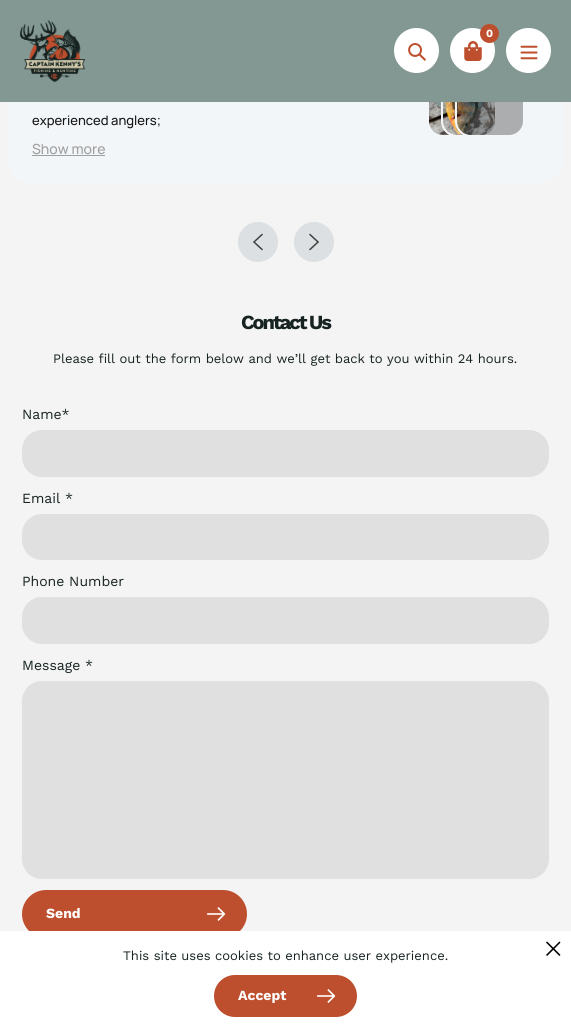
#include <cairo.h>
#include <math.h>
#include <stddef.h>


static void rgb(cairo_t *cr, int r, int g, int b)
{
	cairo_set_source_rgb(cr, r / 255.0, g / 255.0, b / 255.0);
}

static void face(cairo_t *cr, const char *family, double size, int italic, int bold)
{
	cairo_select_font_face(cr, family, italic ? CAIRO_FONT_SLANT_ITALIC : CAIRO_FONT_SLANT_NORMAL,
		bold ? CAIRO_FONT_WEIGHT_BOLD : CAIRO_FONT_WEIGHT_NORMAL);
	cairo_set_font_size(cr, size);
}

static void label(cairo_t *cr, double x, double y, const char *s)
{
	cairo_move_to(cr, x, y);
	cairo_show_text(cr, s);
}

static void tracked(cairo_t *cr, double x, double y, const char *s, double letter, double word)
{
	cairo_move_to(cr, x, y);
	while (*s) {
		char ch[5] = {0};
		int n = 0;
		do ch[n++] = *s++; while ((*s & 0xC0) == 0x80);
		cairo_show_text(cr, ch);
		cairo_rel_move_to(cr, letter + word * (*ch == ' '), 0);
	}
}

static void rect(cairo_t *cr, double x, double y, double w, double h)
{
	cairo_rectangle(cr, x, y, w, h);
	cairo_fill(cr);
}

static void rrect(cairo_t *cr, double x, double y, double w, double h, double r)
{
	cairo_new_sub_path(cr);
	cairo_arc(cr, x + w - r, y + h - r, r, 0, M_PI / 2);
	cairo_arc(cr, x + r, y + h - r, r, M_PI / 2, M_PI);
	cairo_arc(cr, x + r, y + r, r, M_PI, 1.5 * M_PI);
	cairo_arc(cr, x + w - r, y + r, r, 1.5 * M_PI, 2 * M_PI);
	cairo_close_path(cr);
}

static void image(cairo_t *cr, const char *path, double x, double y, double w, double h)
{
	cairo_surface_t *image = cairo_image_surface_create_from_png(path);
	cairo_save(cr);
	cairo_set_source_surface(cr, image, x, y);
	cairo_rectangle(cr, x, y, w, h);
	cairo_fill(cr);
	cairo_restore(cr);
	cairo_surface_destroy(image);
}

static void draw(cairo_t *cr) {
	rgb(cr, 244, 244, 244);
	cairo_paint(cr);
	rgb(cr, 243, 246, 249);
	rrect(cr, 8, -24, 555, 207, 24);
	cairo_fill(cr);
	image(cr, "image4.png", 429, 102, 66, 33);
	rrect(cr, 442, 56, 68, 80, 15);
	cairo_stroke(cr);
	rrect(cr, 456, 56, 68, 80, 15);
	cairo_stroke(cr);
	cairo_set_source_rgba(cr, 0, 0, 0, 0.3);
	rrect(cr, 457, 57, 66, 78, 14);
	cairo_fill(cr);
	rgb(cr, 131, 152, 147);
	rect(cr, 0, 0, 571, 102);
	image(cr, "image0.png", 20, 20, 65, 62);
	rgb(cr, 255, 255, 255);
	cairo_arc(cr, 416.5, 50.5, 22.5, 0, 2 * M_PI);
	cairo_fill(cr);
	image(cr, "image1.png", 408, 43, 18, 18);
	cairo_arc(cr, 472.5, 50.5, 22.5, 0, 2 * M_PI);
	cairo_fill(cr);
	image(cr, "image2.png", 464, 41, 18, 20);
	rgb(cr, 189, 79, 46);
	cairo_arc(cr, 489.5, 33.5, 9.5, 0, 2 * M_PI);
	cairo_fill(cr);
	face(cr, "Work Sans", 11, 0, 1);
	rgb(cr, 255, 255, 255);
	label(cr, 486, 37, "0");
	cairo_new_path(cr);
	cairo_arc(cr, 528.5, 50.5, 22.5, 0, 2 * M_PI);
	cairo_fill(cr);
	image(cr, "image3.png", 520, 45, 18, 15);
	face(cr, "Manrope Medium", 13, 0, 0);
	rgb(cr, 22, 22, 22);
	label(cr, 32, 125, "experienced anglers;");
	face(cr, "Manrope Medium", 14, 0, 0);
	rgb(cr, 159, 159, 159);
	label(cr, 32, 154, "Show more");
	rect(cr, 32, 155, 73, 1);
	rgb(cr, 220, 224, 226);
	cairo_new_path(cr);
	cairo_arc(cr, 258, 242, 19.5, 0, 2 * M_PI);
	cairo_fill_preserve(cr);
	cairo_set_line_width(cr, 1);
	cairo_stroke(cr);
	image(cr, "image5.png", 253, 233, 10, 18);
	cairo_arc(cr, 314, 242, 19.5, 0, 2 * M_PI);
	cairo_fill_preserve(cr);
	cairo_stroke(cr);
	image(cr, "image6.png", 309, 233, 10, 18);
	face(cr, "Work Sans", 20, 0, 1);
	rgb(cr, 23, 35, 34);
	tracked(cr, 241, 329, "Contact Us", -2, 0);
	face(cr, "Work Sans", 13, 0, 0);
	label(cr, 53, 363, "Please fill out the form below and we’ll get back to you within 24 hours.");
	face(cr, "Work Sans", 14, 0, 0);
	label(cr, 22, 419, "Name*");
	rgb(cr, 224, 224, 224);
	rrect(cr, 22, 430, 527, 47, 20);
	cairo_fill(cr);
	rgb(cr, 23, 35, 34);
	label(cr, 22, 503, "Email *");
	rgb(cr, 224, 224, 224);
	rrect(cr, 22, 514, 527, 46, 20);
	cairo_fill(cr);
	rgb(cr, 23, 35, 34);
	label(cr, 22, 586, "Phone Number");
	rgb(cr, 224, 224, 224);
	rrect(cr, 22, 597, 527, 47, 20);
	cairo_fill(cr);
	rgb(cr, 23, 35, 34);
	label(cr, 22, 670, "Message *");
	rgb(cr, 224, 224, 224);
	rrect(cr, 22, 681, 527, 198, 20);
	cairo_fill(cr);
	rgb(cr, 189, 79, 46);
	rrect(cr, 22, 890, 225, 48, 24);
	cairo_fill(cr);
	face(cr, "Work Sans", 14, 0, 1);
	rgb(cr, 255, 255, 255);
	label(cr, 46, 918, "Send");
	image(cr, "image7.png", 206, 907, 20, 14);
	rect(cr, 0, 931, 571, 96);
	face(cr, "Work Sans", 13, 0, 0);
	rgb(cr, 23, 35, 34);
	label(cr, 123, 960, "This site uses cookies to enhance user experience.");
	image(cr, "image8.png", 546, 941, 15, 15);
	rgb(cr, 189, 79, 46);
	rrect(cr, 214, 975, 143, 42, 21);
	cairo_fill(cr);
	face(cr, "Work Sans", 14, 0, 1);
	rgb(cr, 255, 255, 255);
	label(cr, 238, 1000, "Accept");
	image(cr, "image7.png", 316, 989, 20, 14);
}

int main(void) {
	cairo_surface_t *surface = cairo_image_surface_create(CAIRO_FORMAT_RGB24, 571, 1027);
	cairo_t *cr = cairo_create(surface);
	cairo_font_options_t *options = cairo_font_options_create();
	cairo_font_options_set_hint_metrics(options, CAIRO_HINT_METRICS_OFF);
	cairo_font_options_set_hint_style(options, CAIRO_HINT_STYLE_NONE);
	cairo_set_font_options(cr, options);
	cairo_set_miter_limit(cr, 4);
	draw(cr);
	cairo_surface_write_to_png(surface, "render.png");
	cairo_font_options_destroy(options);
	cairo_destroy(cr);
	cairo_surface_destroy(surface);
	return 0;
}
